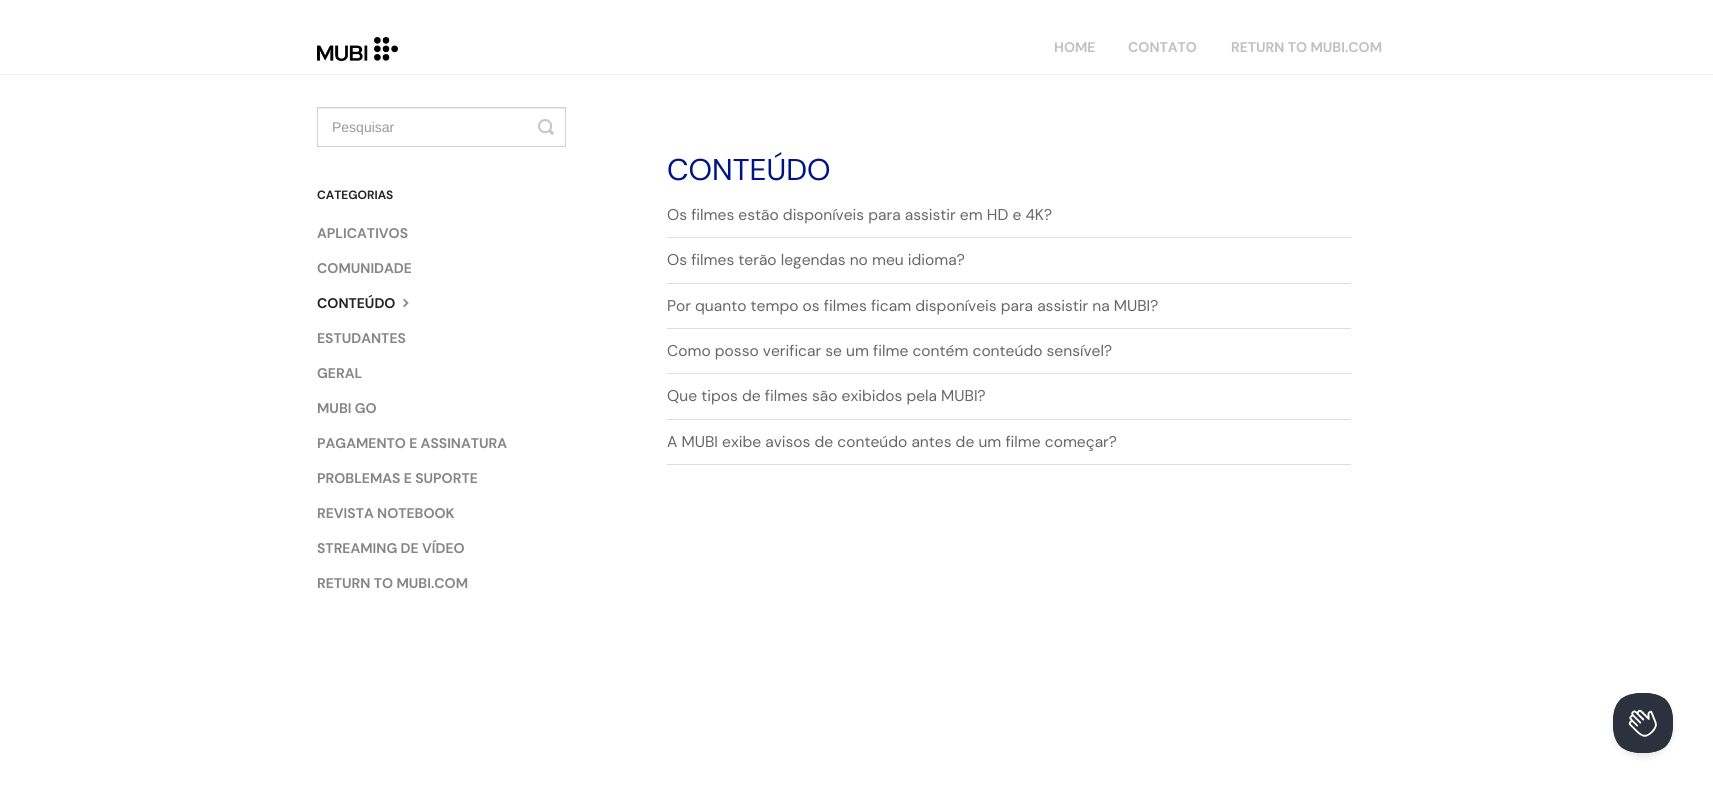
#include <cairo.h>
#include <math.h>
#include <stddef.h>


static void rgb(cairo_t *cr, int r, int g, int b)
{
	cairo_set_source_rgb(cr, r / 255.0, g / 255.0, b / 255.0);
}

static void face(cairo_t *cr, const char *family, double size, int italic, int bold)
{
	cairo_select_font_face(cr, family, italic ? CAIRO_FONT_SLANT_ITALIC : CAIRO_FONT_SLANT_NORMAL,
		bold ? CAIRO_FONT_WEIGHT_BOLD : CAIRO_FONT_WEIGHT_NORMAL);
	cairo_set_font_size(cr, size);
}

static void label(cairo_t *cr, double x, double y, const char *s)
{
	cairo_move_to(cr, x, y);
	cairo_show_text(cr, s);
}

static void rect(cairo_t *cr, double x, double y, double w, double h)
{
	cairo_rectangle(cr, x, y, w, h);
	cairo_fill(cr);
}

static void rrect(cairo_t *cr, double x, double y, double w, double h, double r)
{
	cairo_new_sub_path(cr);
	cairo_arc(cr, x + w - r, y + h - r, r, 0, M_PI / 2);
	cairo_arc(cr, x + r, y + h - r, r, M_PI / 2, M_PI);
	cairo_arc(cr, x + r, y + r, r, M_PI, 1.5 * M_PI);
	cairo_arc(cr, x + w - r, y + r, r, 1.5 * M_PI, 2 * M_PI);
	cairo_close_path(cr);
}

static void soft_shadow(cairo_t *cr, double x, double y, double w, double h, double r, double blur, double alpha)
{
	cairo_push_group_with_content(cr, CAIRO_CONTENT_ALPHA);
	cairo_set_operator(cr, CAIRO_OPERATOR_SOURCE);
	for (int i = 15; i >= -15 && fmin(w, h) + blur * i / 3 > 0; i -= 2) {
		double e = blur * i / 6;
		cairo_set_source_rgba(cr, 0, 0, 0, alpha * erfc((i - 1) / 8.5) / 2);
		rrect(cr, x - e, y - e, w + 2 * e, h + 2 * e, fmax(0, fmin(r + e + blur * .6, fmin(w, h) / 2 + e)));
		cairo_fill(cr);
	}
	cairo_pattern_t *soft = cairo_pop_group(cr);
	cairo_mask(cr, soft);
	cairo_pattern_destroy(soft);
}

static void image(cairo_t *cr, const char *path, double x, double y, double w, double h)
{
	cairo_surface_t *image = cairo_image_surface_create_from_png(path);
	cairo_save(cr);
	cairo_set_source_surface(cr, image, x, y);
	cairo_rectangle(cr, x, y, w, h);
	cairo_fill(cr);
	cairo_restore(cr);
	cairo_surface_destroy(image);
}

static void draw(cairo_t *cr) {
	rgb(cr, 255, 255, 255);
	cairo_paint(cr);
	rgb(cr, 239, 239, 239);
	rect(cr, 0, 74, 1713, 1);
	image(cr, "image0.png", 317, 37, 81, 24);
	face(cr, "DM Sans", 14, 0, 1);
	rgb(cr, 192, 192, 192);
	label(cr, 1054, 52, "HOME");
	label(cr, 1128, 52, "CONTATO");
	label(cr, 1231, 52, "RETURN TO MUBI.COM");
	rgb(cr, 236, 236, 236);
	rect(cr, 318, 108, 247, 1);
	cairo_rectangle(cr, 317.5, 107.5, 248, 39);
	rgb(cr, 208, 208, 208);
	cairo_set_line_width(cr, 1);
	cairo_stroke(cr);
	face(cr, "Liberation Sans", 14, 0, 0);
	rgb(cr, 153, 153, 153);
	label(cr, 332, 132, "Pesquisar");
	image(cr, "image1.png", 538, 119, 16, 16);
	face(cr, "DM Sans", 12, 0, 1);
	rgb(cr, 34, 34, 34);
	label(cr, 317, 199, "CATEGORIAS");
	face(cr, "DM Sans", 14, 0, 1);
	rgb(cr, 133, 133, 133);
	label(cr, 317, 238, "APLICATIVOS");
	label(cr, 317, 273, "COMUNIDADE");
	rgb(cr, 34, 34, 34);
	label(cr, 317, 308, "CONTEÚDO");
	image(cr, "image2.png", 403, 298, 6, 10);
	rgb(cr, 133, 133, 133);
	label(cr, 317, 343, "ESTUDANTES");
	label(cr, 317, 378, "GERAL");
	label(cr, 317, 413, "MUBI GO");
	label(cr, 317, 448, "PAGAMENTO E ASSINATURA");
	label(cr, 317, 483, "PROBLEMAS E SUPORTE");
	label(cr, 317, 518, "REVISTA NOTEBOOK");
	label(cr, 317, 553, "STREAMING DE VÍDEO");
	label(cr, 317, 588, "RETURN TO MUBI.COM");
	face(cr, "DM Sans", 30, 0, 0);
	rgb(cr, 0, 20, 137);
	label(cr, 667, 180, "CONTEÚDO");
	rgb(cr, 221, 221, 221);
	rect(cr, 667, 237, 684, 1);
	face(cr, "DM Sans", 15.6, 0, 0);
	rgb(cr, 102, 102, 102);
	label(cr, 667, 220, "Os filmes estão disponíveis para assistir em HD e 4K?");
	rgb(cr, 221, 221, 221);
	rect(cr, 667, 283, 684, 1);
	rgb(cr, 102, 102, 102);
	label(cr, 667, 265, "Os filmes terão legendas no meu idioma?");
	rgb(cr, 221, 221, 221);
	rect(cr, 667, 328, 684, 1);
	rgb(cr, 102, 102, 102);
	label(cr, 667, 311, "Por quanto tempo os filmes ficam disponíveis para assistir na MUBI?");
	rgb(cr, 221, 221, 221);
	rect(cr, 667, 373, 684, 1);
	rgb(cr, 102, 102, 102);
	label(cr, 667, 356, "Como posso verificar se um filme contém conteúdo sensível?");
	rgb(cr, 221, 221, 221);
	rect(cr, 667, 419, 684, 1);
	rgb(cr, 102, 102, 102);
	label(cr, 667, 401, "Que tipos de filmes são exibidos pela MUBI?");
	rgb(cr, 221, 221, 221);
	rect(cr, 667, 464, 684, 1);
	rgb(cr, 102, 102, 102);
	label(cr, 667, 447, "A MUBI exibe avisos de conteúdo antes de um filme começar?");
	rgb(cr, 0, 0, 0);
	soft_shadow(cr, 1613, 697, 60, 60, 30, 3.5, 0.1);
	image(cr, "image3.png", 1613, 693, 60, 60);
}

int main(void) {
	cairo_surface_t *surface = cairo_image_surface_create(CAIRO_FORMAT_RGB24, 1713, 793);
	cairo_t *cr = cairo_create(surface);
	cairo_font_options_t *options = cairo_font_options_create();
	cairo_font_options_set_hint_metrics(options, CAIRO_HINT_METRICS_OFF);
	cairo_font_options_set_hint_style(options, CAIRO_HINT_STYLE_NONE);
	cairo_set_font_options(cr, options);
	cairo_set_miter_limit(cr, 4);
	draw(cr);
	cairo_surface_write_to_png(surface, "render.png");
	cairo_font_options_destroy(options);
	cairo_destroy(cr);
	cairo_surface_destroy(surface);
	return 0;
}
